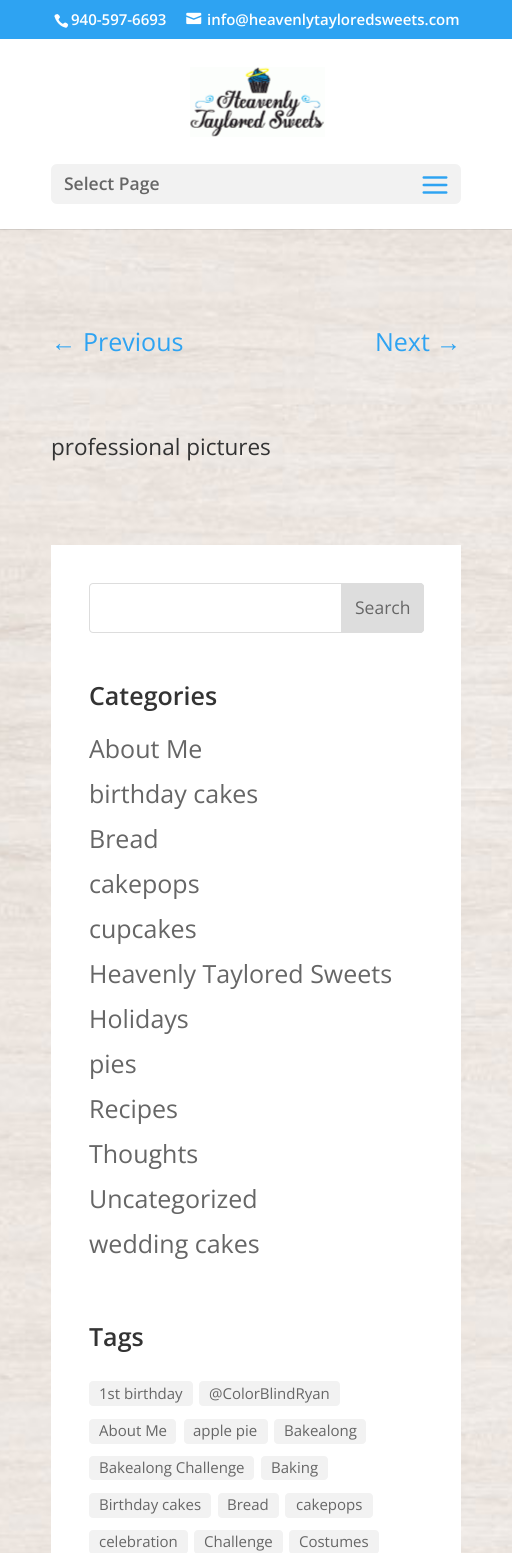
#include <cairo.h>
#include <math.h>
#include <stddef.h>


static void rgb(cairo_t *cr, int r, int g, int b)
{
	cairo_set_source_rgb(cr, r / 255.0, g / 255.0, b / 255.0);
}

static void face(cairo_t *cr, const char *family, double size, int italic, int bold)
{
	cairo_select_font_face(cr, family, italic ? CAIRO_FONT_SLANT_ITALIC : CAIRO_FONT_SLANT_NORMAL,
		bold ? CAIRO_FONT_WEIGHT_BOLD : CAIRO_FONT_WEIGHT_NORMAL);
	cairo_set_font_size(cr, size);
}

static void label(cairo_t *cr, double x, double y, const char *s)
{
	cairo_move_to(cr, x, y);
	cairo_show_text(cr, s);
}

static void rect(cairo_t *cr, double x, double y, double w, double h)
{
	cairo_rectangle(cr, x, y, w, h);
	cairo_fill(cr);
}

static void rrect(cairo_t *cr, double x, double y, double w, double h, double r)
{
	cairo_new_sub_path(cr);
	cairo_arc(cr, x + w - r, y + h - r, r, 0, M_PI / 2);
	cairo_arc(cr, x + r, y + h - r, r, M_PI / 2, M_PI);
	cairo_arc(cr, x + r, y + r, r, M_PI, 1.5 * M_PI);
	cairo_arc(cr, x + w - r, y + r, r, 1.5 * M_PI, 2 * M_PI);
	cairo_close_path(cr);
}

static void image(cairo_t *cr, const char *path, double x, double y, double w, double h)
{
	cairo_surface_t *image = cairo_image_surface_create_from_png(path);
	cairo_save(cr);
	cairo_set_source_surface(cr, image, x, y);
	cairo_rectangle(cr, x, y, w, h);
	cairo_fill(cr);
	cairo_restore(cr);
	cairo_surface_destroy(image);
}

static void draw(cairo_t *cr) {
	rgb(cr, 255, 255, 255);
	cairo_paint(cr);
	rgb(cr, 46, 163, 242);
	rect(cr, 0, 0, 512, 39);
	image(cr, "image0.png", 54, 14, 15, 14);
	face(cr, "Open Sans SemiBold", 15, 0, 0);
	rgb(cr, 255, 255, 255);
	label(cr, 71, 25, "940-597-6693");
	image(cr, "image1.png", 186, 12, 16, 13);
	label(cr, 207, 25, "info@heavenlytayloredsweets.com");
	image(cr, "image4.png", 0, 229, 512, 1324);
	cairo_set_source_rgba(cr, 0, 0, 0, 0.1);
	cairo_new_path(cr);
	cairo_move_to(cr, 0, 229);
	cairo_line_to(cr, 0, 230);
	cairo_line_to(cr, 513, 230);
	cairo_line_to(cr, 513, 40);
	cairo_line_to(cr, 512, 40);
	cairo_line_to(cr, 512, 229);
	cairo_close_path(cr);
	cairo_fill(cr);
	image(cr, "image2.png", 190, 67, 135, 70);
	rgb(cr, 242, 242, 242);
	rrect(cr, 51, 164, 410, 40, 6);
	cairo_fill(cr);
	face(cr, "Open Sans SemiBold", 17.5, 0, 0);
	rgb(cr, 102, 102, 102);
	label(cr, 64, 190, "Select Page");
	image(cr, "image3.png", 422, 176, 26, 18);
	face(cr, "Liberation Sans", 25, 0, 0);
	rgb(cr, 46, 163, 242);
	label(cr, 51, 351, "←");
	face(cr, "Open Sans", 25, 0, 0);
	label(cr, 83, 351, "Previous");
	label(cr, 375, 351, "Next");
	face(cr, "Liberation Sans", 25, 0, 0);
	label(cr, 436, 351, "→");
	face(cr, "Open Sans", 22.5, 0, 0);
	rgb(cr, 51, 51, 51);
	label(cr, 51, 455, "professional pictures");
	rgb(cr, 255, 255, 255);
	rect(cr, 51, 545, 410, 1008);
	rrect(cr, 89.5, 583.5, 334, 49, 3.5);
	rgb(cr, 221, 221, 221);
	cairo_set_line_width(cr, 1);
	cairo_stroke(cr);
	cairo_new_path(cr);
	cairo_move_to(cr, 341.5, 583.5);
	cairo_line_to(cr, 420, 583.5);
	cairo_curve_to(cr, 422, 583.5, 423.5, 585, 423.5, 587);
	cairo_line_to(cr, 423.5, 629);
	cairo_curve_to(cr, 423.5, 631, 422, 632.5, 420, 632.5);
	cairo_line_to(cr, 341.5, 632.5);
	cairo_close_path(cr);
	cairo_fill_preserve(cr);
	cairo_stroke(cr);
	face(cr, "Open Sans", 17.5, 0, 0);
	rgb(cr, 102, 102, 102);
	label(cr, 355, 614, "Search");
	face(cr, "Open Sans SemiBold", 25, 0, 0);
	rgb(cr, 51, 51, 51);
	label(cr, 89, 705, "Categories");
	face(cr, "Open Sans", 25, 0, 0);
	rgb(cr, 102, 102, 102);
	label(cr, 89, 758, "About Me");
	label(cr, 89, 803, "birthday cakes");
	label(cr, 89, 848, "Bread");
	label(cr, 89, 893, "cakepops");
	label(cr, 89, 938, "cupcakes");
	label(cr, 89, 983, "Heavenly Taylored Sweets");
	label(cr, 89, 1028, "Holidays");
	label(cr, 89, 1073, "pies");
	label(cr, 89, 1118, "Recipes");
	label(cr, 89, 1163, "Thoughts");
	label(cr, 89, 1208, "Uncategorized");
	label(cr, 89, 1253, "wedding cakes");
	face(cr, "Open Sans SemiBold", 25, 0, 0);
	rgb(cr, 51, 51, 51);
	label(cr, 89, 1346, "Tags");
	rgb(cr, 242, 242, 242);
	rrect(cr, 89, 1381, 104, 25, 4);
	cairo_fill(cr);
	face(cr, "Open Sans", 15, 0, 0);
	rgb(cr, 102, 102, 102);
	label(cr, 99, 1399, "1st birthday");
	rgb(cr, 242, 242, 242);
	rrect(cr, 199, 1381, 141, 25, 4);
	cairo_fill(cr);
	rgb(cr, 102, 102, 102);
	label(cr, 209, 1399, "@ColorBlindRyan");
	rgb(cr, 242, 242, 242);
	rrect(cr, 89, 1419, 87, 25, 4);
	cairo_fill(cr);
	rgb(cr, 102, 102, 102);
	label(cr, 99, 1436, "About Me");
	rgb(cr, 242, 242, 242);
	rrect(cr, 184, 1419, 84, 25, 4);
	cairo_fill(cr);
	rgb(cr, 102, 102, 102);
	label(cr, 193, 1436, "apple pie");
	rgb(cr, 242, 242, 242);
	rrect(cr, 274, 1419, 92, 25, 4);
	cairo_fill(cr);
	rgb(cr, 102, 102, 102);
	label(cr, 284, 1436, "Bakealong");
	rgb(cr, 242, 242, 242);
	rrect(cr, 89, 1456, 165, 24, 4);
	cairo_fill(cr);
	rgb(cr, 102, 102, 102);
	label(cr, 99, 1473, "Bakealong Challenge");
	rgb(cr, 242, 242, 242);
	rrect(cr, 261, 1456, 67, 24, 4);
	cairo_fill(cr);
	rgb(cr, 102, 102, 102);
	label(cr, 271, 1473, "Baking");
	rgb(cr, 242, 242, 242);
	rrect(cr, 89, 1493, 122, 25, 4);
	cairo_fill(cr);
	rgb(cr, 102, 102, 102);
	label(cr, 99, 1510, "Birthday cakes");
	rgb(cr, 242, 242, 242);
	rrect(cr, 218, 1493, 61, 25, 4);
	cairo_fill(cr);
	rgb(cr, 102, 102, 102);
	label(cr, 227, 1510, "Bread");
	rgb(cr, 242, 242, 242);
	rrect(cr, 285, 1493, 88, 25, 4);
	cairo_fill(cr);
	rgb(cr, 102, 102, 102);
	label(cr, 296, 1510, "cakepops");
	rgb(cr, 242, 242, 242);
	rrect(cr, 89, 1530, 99, 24, 4);
	cairo_fill(cr);
	rgb(cr, 102, 102, 102);
	label(cr, 99, 1547, "celebration");
	rgb(cr, 242, 242, 242);
	rrect(cr, 194, 1530, 89, 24, 4);
	cairo_fill(cr);
	rgb(cr, 102, 102, 102);
	label(cr, 204, 1547, "Challenge");
	rgb(cr, 242, 242, 242);
	rrect(cr, 289, 1530, 90, 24, 4);
	cairo_fill(cr);
	rgb(cr, 102, 102, 102);
	label(cr, 299, 1547, "Costumes");
}

int main(void) {
	cairo_surface_t *surface = cairo_image_surface_create(CAIRO_FORMAT_RGB24, 512, 1553);
	cairo_t *cr = cairo_create(surface);
	cairo_font_options_t *options = cairo_font_options_create();
	cairo_font_options_set_hint_metrics(options, CAIRO_HINT_METRICS_OFF);
	cairo_font_options_set_hint_style(options, CAIRO_HINT_STYLE_NONE);
	cairo_set_font_options(cr, options);
	cairo_set_miter_limit(cr, 4);
	draw(cr);
	cairo_surface_write_to_png(surface, "render.png");
	cairo_font_options_destroy(options);
	cairo_destroy(cr);
	cairo_surface_destroy(surface);
	return 0;
}
